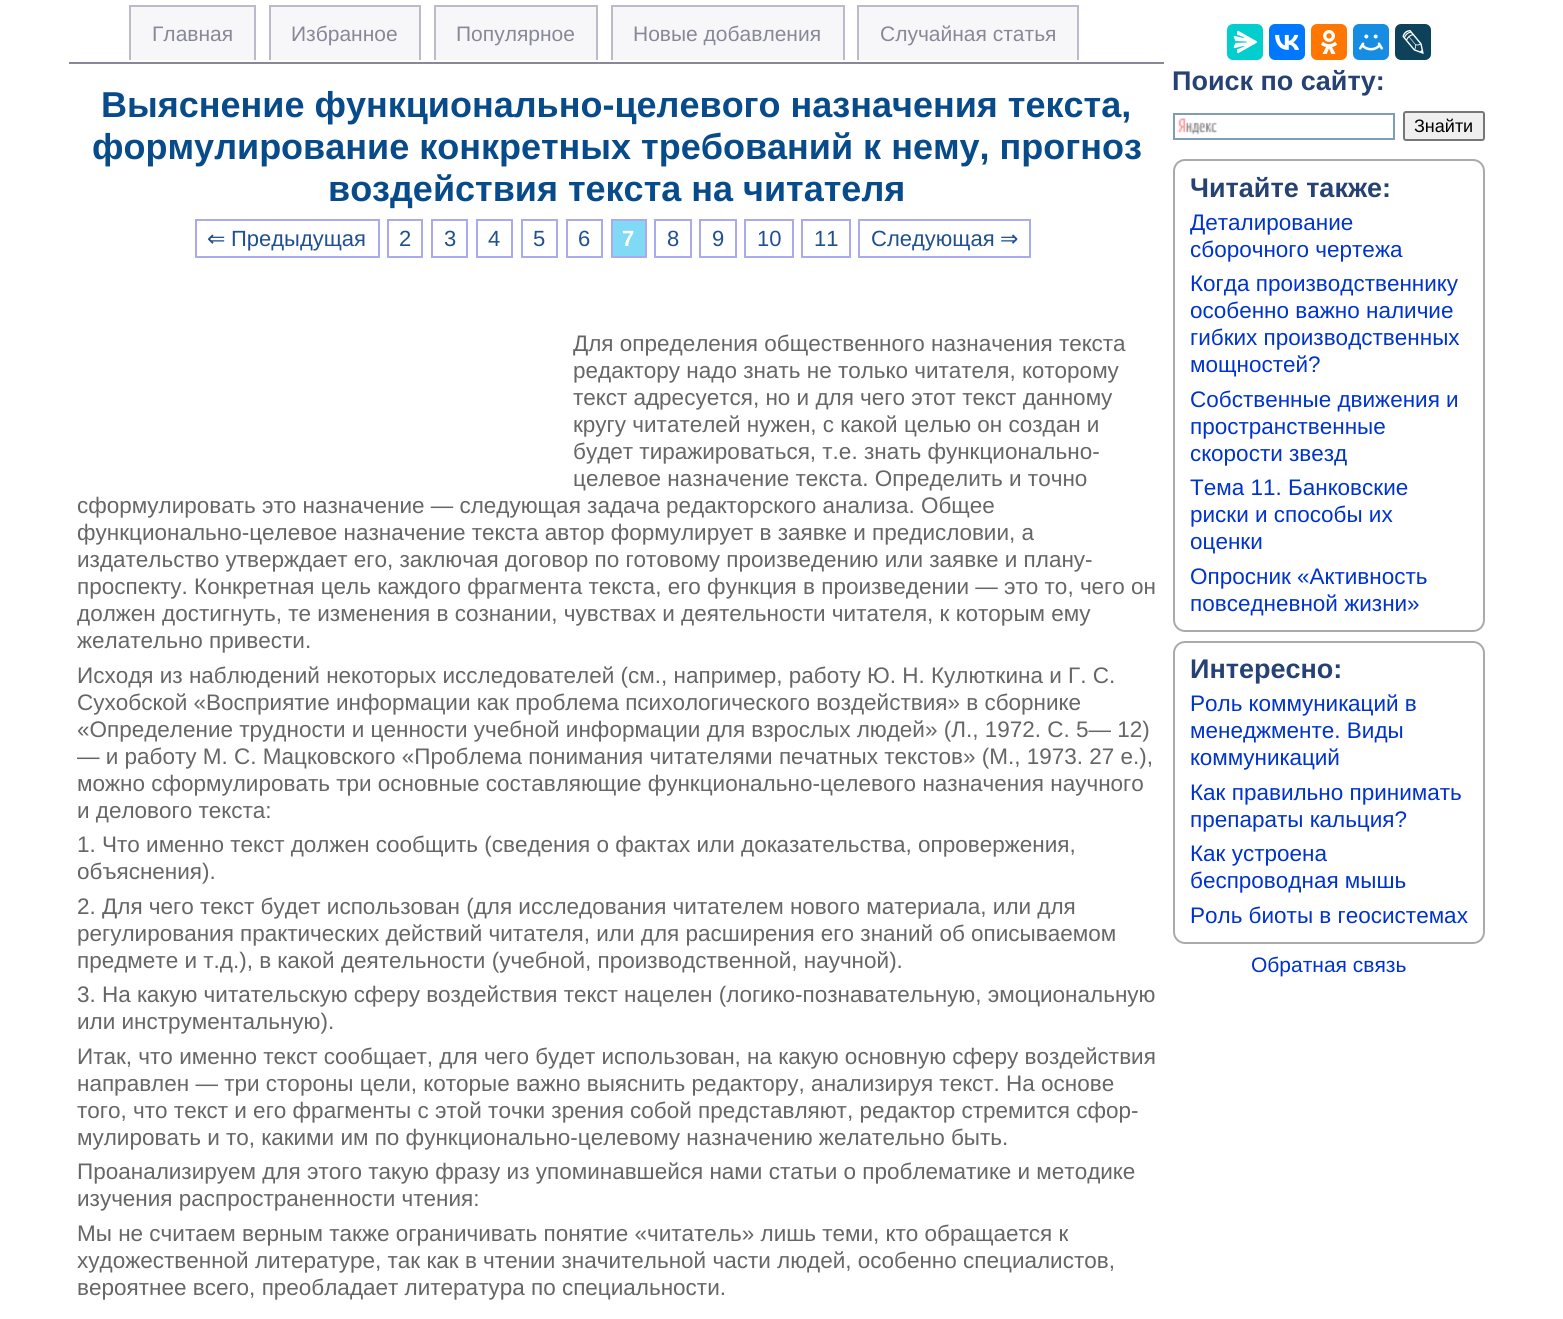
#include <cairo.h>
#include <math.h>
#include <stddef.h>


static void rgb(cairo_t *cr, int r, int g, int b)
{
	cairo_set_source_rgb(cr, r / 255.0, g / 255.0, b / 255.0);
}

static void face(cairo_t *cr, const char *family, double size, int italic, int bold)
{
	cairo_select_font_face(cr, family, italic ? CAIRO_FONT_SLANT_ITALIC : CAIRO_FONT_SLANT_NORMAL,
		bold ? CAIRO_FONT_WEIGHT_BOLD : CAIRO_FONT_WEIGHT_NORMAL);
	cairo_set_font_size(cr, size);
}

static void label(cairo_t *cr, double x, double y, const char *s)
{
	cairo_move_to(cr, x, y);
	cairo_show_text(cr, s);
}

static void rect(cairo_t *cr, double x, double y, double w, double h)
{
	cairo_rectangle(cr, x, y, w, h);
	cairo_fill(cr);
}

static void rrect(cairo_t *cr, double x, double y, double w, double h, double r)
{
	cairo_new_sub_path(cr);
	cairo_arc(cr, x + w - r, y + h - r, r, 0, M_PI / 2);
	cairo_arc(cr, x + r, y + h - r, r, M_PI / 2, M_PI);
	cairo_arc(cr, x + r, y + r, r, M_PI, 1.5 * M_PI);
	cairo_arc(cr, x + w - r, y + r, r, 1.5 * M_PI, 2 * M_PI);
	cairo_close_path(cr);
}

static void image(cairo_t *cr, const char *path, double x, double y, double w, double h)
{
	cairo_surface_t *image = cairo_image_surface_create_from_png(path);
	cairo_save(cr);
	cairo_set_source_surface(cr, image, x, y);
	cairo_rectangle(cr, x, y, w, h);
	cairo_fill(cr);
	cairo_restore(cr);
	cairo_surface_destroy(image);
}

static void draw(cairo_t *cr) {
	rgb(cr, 255, 255, 255);
	cairo_paint(cr);
	rgb(cr, 136, 136, 153);
	rect(cr, 69, 62, 1095, 2);
	rgb(cr, 247, 247, 249);
	rect(cr, 131, 7, 123, 53);
	face(cr, "Liberation Sans", 21, 0, 0);
	rgb(cr, 136, 136, 153);
	label(cr, 152, 41, "Главная");
	rgb(cr, 187, 187, 204);
	rect(cr, 129, 5, 126, 2);
	rect(cr, 254, 5, 2, 55);
	rect(cr, 129, 5, 2, 55);
	rgb(cr, 247, 247, 249);
	rect(cr, 271, 7, 148, 53);
	rgb(cr, 136, 136, 153);
	label(cr, 291, 41, "Избранное");
	rgb(cr, 187, 187, 204);
	rect(cr, 269, 5, 151, 2);
	rect(cr, 419, 5, 2, 55);
	rect(cr, 269, 5, 2, 55);
	rgb(cr, 247, 247, 249);
	rect(cr, 436, 7, 160, 53);
	rgb(cr, 136, 136, 153);
	label(cr, 456, 41, "Популярное");
	rgb(cr, 187, 187, 204);
	rect(cr, 434, 5, 163, 2);
	rect(cr, 596, 5, 2, 55);
	rect(cr, 434, 5, 2, 55);
	rgb(cr, 247, 247, 249);
	rect(cr, 613, 7, 230, 53);
	rgb(cr, 136, 136, 153);
	label(cr, 633, 41, "Новые добавления");
	rgb(cr, 187, 187, 204);
	rect(cr, 611, 5, 234, 2);
	rect(cr, 843, 5, 2, 55);
	rect(cr, 611, 5, 2, 55);
	rgb(cr, 247, 247, 249);
	rect(cr, 859, 7, 218, 53);
	rgb(cr, 136, 136, 153);
	label(cr, 880, 41, "Случайная статья");
	rgb(cr, 187, 187, 204);
	rect(cr, 857, 5, 222, 2);
	rect(cr, 1077, 5, 2, 55);
	rect(cr, 857, 5, 2, 55);
	face(cr, "Liberation Sans", 36, 0, 1);
	rgb(cr, 8, 75, 138);
	label(cr, 101, 117, "Выяснение функционально-целевого назначения текста,");
	label(cr, 92, 159, "формулирование конкретных требований к нему, прогноз");
	label(cr, 328, 201, "воздействия текста на читателя");
	cairo_rectangle(cr, 196, 220, 183, 37);
	rgb(cr, 170, 170, 238);
	cairo_stroke(cr);
	face(cr, "DejaVu Sans", 22, 0, 0);
	rgb(cr, 32, 80, 144);
	label(cr, 207, 246, "⇐");
	face(cr, "Liberation Sans", 22, 0, 0);
	label(cr, 231, 246, "Предыдущая");
	cairo_rectangle(cr, 388, 220, 34, 37);
	rgb(cr, 170, 170, 238);
	cairo_stroke(cr);
	rgb(cr, 32, 80, 144);
	label(cr, 399, 246, "2");
	cairo_rectangle(cr, 432, 220, 35, 37);
	rgb(cr, 170, 170, 238);
	cairo_stroke(cr);
	rgb(cr, 32, 80, 144);
	label(cr, 444, 246, "3");
	cairo_rectangle(cr, 477, 220, 35, 37);
	rgb(cr, 170, 170, 238);
	cairo_stroke(cr);
	rgb(cr, 32, 80, 144);
	label(cr, 488, 246, "4");
	cairo_rectangle(cr, 522, 220, 35, 37);
	rgb(cr, 170, 170, 238);
	cairo_stroke(cr);
	rgb(cr, 32, 80, 144);
	label(cr, 533, 246, "5");
	cairo_rectangle(cr, 567, 220, 35, 37);
	rgb(cr, 170, 170, 238);
	cairo_stroke(cr);
	rgb(cr, 32, 80, 144);
	label(cr, 578, 246, "6");
	rgb(cr, 129, 218, 245);
	cairo_rectangle(cr, 612, 220, 34, 37);
	cairo_fill_preserve(cr);
	rgb(cr, 170, 170, 238);
	cairo_stroke(cr);
	face(cr, "Liberation Sans", 22, 0, 1);
	rgb(cr, 255, 255, 255);
	label(cr, 622, 246, "7");
	cairo_rectangle(cr, 655, 220, 36, 37);
	rgb(cr, 170, 170, 238);
	cairo_stroke(cr);
	face(cr, "Liberation Sans", 22, 0, 0);
	rgb(cr, 32, 80, 144);
	label(cr, 667, 246, "8");
	cairo_rectangle(cr, 700, 220, 36, 37);
	rgb(cr, 170, 170, 238);
	cairo_stroke(cr);
	rgb(cr, 32, 80, 144);
	label(cr, 712, 246, "9");
	cairo_rectangle(cr, 745, 220, 48, 37);
	rgb(cr, 170, 170, 238);
	cairo_stroke(cr);
	rgb(cr, 32, 80, 144);
	label(cr, 757, 246, "10");
	cairo_rectangle(cr, 802, 220, 48, 37);
	rgb(cr, 170, 170, 238);
	cairo_stroke(cr);
	rgb(cr, 32, 80, 144);
	label(cr, 814, 246, "11");
	cairo_rectangle(cr, 859, 220, 171, 37);
	rgb(cr, 170, 170, 238);
	cairo_stroke(cr);
	rgb(cr, 32, 80, 144);
	label(cr, 871, 246, "Следующая");
	face(cr, "DejaVu Sans", 22, 0, 0);
	label(cr, 1000, 246, "⇒");
	face(cr, "Liberation Sans", 22.5, 0, 0);
	rgb(cr, 102, 102, 102);
	label(cr, 573, 351, "Для определения общественного назначения текста");
	label(cr, 573, 378, "редактору надо знать не только читателя, которому");
	label(cr, 573, 405, "текст адресуется, но и для чего этот текст данному");
	label(cr, 573, 432, "кругу читателей нужен, с какой целью он создан и");
	label(cr, 573, 459, "будет тиражироваться, т.е. знать функционально-");
	label(cr, 573, 486, "целевое назначение текста. Определить и точно");
	label(cr, 77, 513, "сформулировать это назначение — следующая задача редакторского анализа. Общее");
	label(cr, 77, 540, "функционально-целевое назначение текста автор формулирует в заявке и предисловии, а");
	label(cr, 77, 567, "издательство утверждает его, заключая договор по готовому произведению или заявке и плану-");
	label(cr, 77, 594, "проспекту. Конкретная цель каждого фрагмента текста, его функция в произведении — это то, чего он");
	label(cr, 77, 621, "должен достигнуть, те изменения в сознании, чувствах и деятельности читателя, к которым ему");
	label(cr, 77, 648, "желательно привести.");
	label(cr, 77, 683, "Исходя из наблюдений некоторых исследователей (см., например, работу Ю. Н. Кулюткина и Г. С.");
	label(cr, 77, 710, "Сухобской «Восприятие информации как проблема психологического воздействия» в сборнике");
	label(cr, 77, 737, "«Определение трудности и ценности учебной информации для взрослых людей» (Л., 1972. С. 5— 12)");
	label(cr, 77, 764, "— и работу М. С. Мацковского «Проблема понимания читателями печатных текстов» (М., 1973. 27 е.),");
	label(cr, 77, 791, "можно сформулировать три основные составляющие функционально-целевого назначения научного");
	label(cr, 77, 818, "и делового текста:");
	label(cr, 77, 852, "1. Что именно текст должен сообщить (сведения о фактах или доказательства, опровержения,");
	label(cr, 77, 879, "объяснения).");
	label(cr, 77, 914, "2. Для чего текст будет использован (для исследования читателем нового материала, или для");
	label(cr, 77, 941, "регулирования практических действий читателя, или для расширения его знаний об описываемом");
	label(cr, 77, 968, "предмете и т.д.), в какой деятельности (учебной, производственной, научной).");
	label(cr, 77, 1002, "3. На какую читательскую сферу воздействия текст нацелен (логико-познавательную, эмоциональную");
	label(cr, 77, 1029, "или инструментальную).");
	label(cr, 77, 1064, "Итак, что именно текст сообщает, для чего будет использован, на какую основную сферу воздействия");
	label(cr, 77, 1091, "направлен — три стороны цели, которые важно выяснить редактору, анализируя текст. На основе");
	label(cr, 77, 1118, "того, что текст и его фрагменты с этой точки зрения собой представляют, редактор стремится сфор-");
	label(cr, 77, 1145, "мулировать и то, какими им по функционально-целевому назначению желательно быть.");
	label(cr, 77, 1179, "Проанализируем для этого такую фразу из упоминавшейся нами статьи о проблематике и методике");
	label(cr, 77, 1206, "изучения распространенности чтения:");
	label(cr, 77, 1241, "Мы не считаем верным также ограничивать понятие «читатель» лишь теми, кто обращается к");
	label(cr, 77, 1268, "художественной литературе, так как в чтении значительной части людей, особенно специалистов,");
	label(cr, 77, 1295, "вероятнее всего, преобладает литература по специальности.");
	rgb(cr, 3, 206, 206);
	rrect(cr, 1227, 24, 36, 36, 6);
	cairo_fill(cr);
	image(cr, "image0.png", 1233, 30, 24, 24);
	rgb(cr, 0, 119, 255);
	rrect(cr, 1269, 24, 36, 36, 6);
	cairo_fill(cr);
	image(cr, "image1.png", 1275, 34, 24, 16);
	rgb(cr, 255, 119, 0);
	rrect(cr, 1311, 24, 36, 36, 6);
	cairo_fill(cr);
	image(cr, "image2.png", 1321, 30, 17, 24);
	rgb(cr, 22, 141, 226);
	rrect(cr, 1353, 24, 36, 36, 6);
	cairo_fill(cr);
	image(cr, "image3.png", 1359, 34, 24, 17);
	rgb(cr, 13, 66, 90);
	rrect(cr, 1395, 24, 36, 36, 6);
	cairo_fill(cr);
	image(cr, "image4.png", 1402, 30, 22, 24);
	face(cr, "Liberation Sans", 27, 0, 1);
	rgb(cr, 38, 66, 116);
	label(cr, 1172, 90, "Поиск по сайту:");
	image(cr, "image5.png", 1177, 118, 40, 17);
	cairo_rectangle(cr, 1174, 114, 220, 25);
	rgb(cr, 127, 157, 185);
	cairo_stroke(cr);
	rgb(cr, 239, 239, 239);
	rrect(cr, 1404, 112, 80, 28, 2);
	cairo_fill_preserve(cr);
	rgb(cr, 118, 118, 118);
	cairo_stroke(cr);
	face(cr, "Liberation Sans", 18, 0, 0);
	rgb(cr, 0, 0, 0);
	label(cr, 1414, 132, "Знайти");
	rrect(cr, 1174, 160, 310, 471, 11);
	rgb(cr, 170, 170, 170);
	cairo_stroke(cr);
	face(cr, "Liberation Sans", 27, 0, 1);
	rgb(cr, 38, 66, 116);
	label(cr, 1190, 197, "Читайте также:");
	face(cr, "Liberation Sans", 22.5, 0, 0);
	rgb(cr, 0, 51, 204);
	label(cr, 1190, 230, "Деталирование");
	label(cr, 1190, 257, "сборочного чертежа");
	label(cr, 1190, 291, "Когда производственнику");
	label(cr, 1190, 318, "особенно важно наличие");
	label(cr, 1190, 345, "гибких производственных");
	label(cr, 1190, 372, "мощностей?");
	label(cr, 1190, 407, "Собственные движения и");
	label(cr, 1190, 434, "пространственные");
	label(cr, 1190, 461, "скорости звезд");
	label(cr, 1190, 495, "Тема 11. Банковские");
	label(cr, 1190, 522, "риски и способы их");
	label(cr, 1190, 549, "оценки");
	label(cr, 1190, 584, "Опросник «Активность");
	label(cr, 1190, 611, "повседневной жизни»");
	rrect(cr, 1174, 642, 310, 301, 11);
	rgb(cr, 170, 170, 170);
	cairo_stroke(cr);
	face(cr, "Liberation Sans", 27, 0, 1);
	rgb(cr, 38, 66, 116);
	label(cr, 1190, 678, "Интересно:");
	face(cr, "Liberation Sans", 22.5, 0, 0);
	rgb(cr, 0, 51, 204);
	label(cr, 1190, 711, "Роль коммуникаций в");
	label(cr, 1190, 738, "менеджменте. Виды");
	label(cr, 1190, 765, "коммуникаций");
	label(cr, 1190, 800, "Как правильно принимать");
	label(cr, 1190, 827, "препараты кальция?");
	label(cr, 1190, 861, "Как устроена");
	label(cr, 1190, 888, "беспроводная мышь");
	label(cr, 1190, 923, "Роль биоты в геосистемах");
	face(cr, "Liberation Sans", 21, 0, 0);
	label(cr, 1251, 972, "Обратная связь");
}

int main(void) {
	cairo_surface_t *surface = cairo_image_surface_create(CAIRO_FORMAT_RGB24, 1563, 1319);
	cairo_t *cr = cairo_create(surface);
	cairo_font_options_t *options = cairo_font_options_create();
	cairo_font_options_set_hint_metrics(options, CAIRO_HINT_METRICS_OFF);
	cairo_font_options_set_hint_style(options, CAIRO_HINT_STYLE_NONE);
	cairo_set_font_options(cr, options);
	cairo_set_miter_limit(cr, 4);
	draw(cr);
	cairo_surface_write_to_png(surface, "render.png");
	cairo_font_options_destroy(options);
	cairo_destroy(cr);
	cairo_surface_destroy(surface);
	return 0;
}
